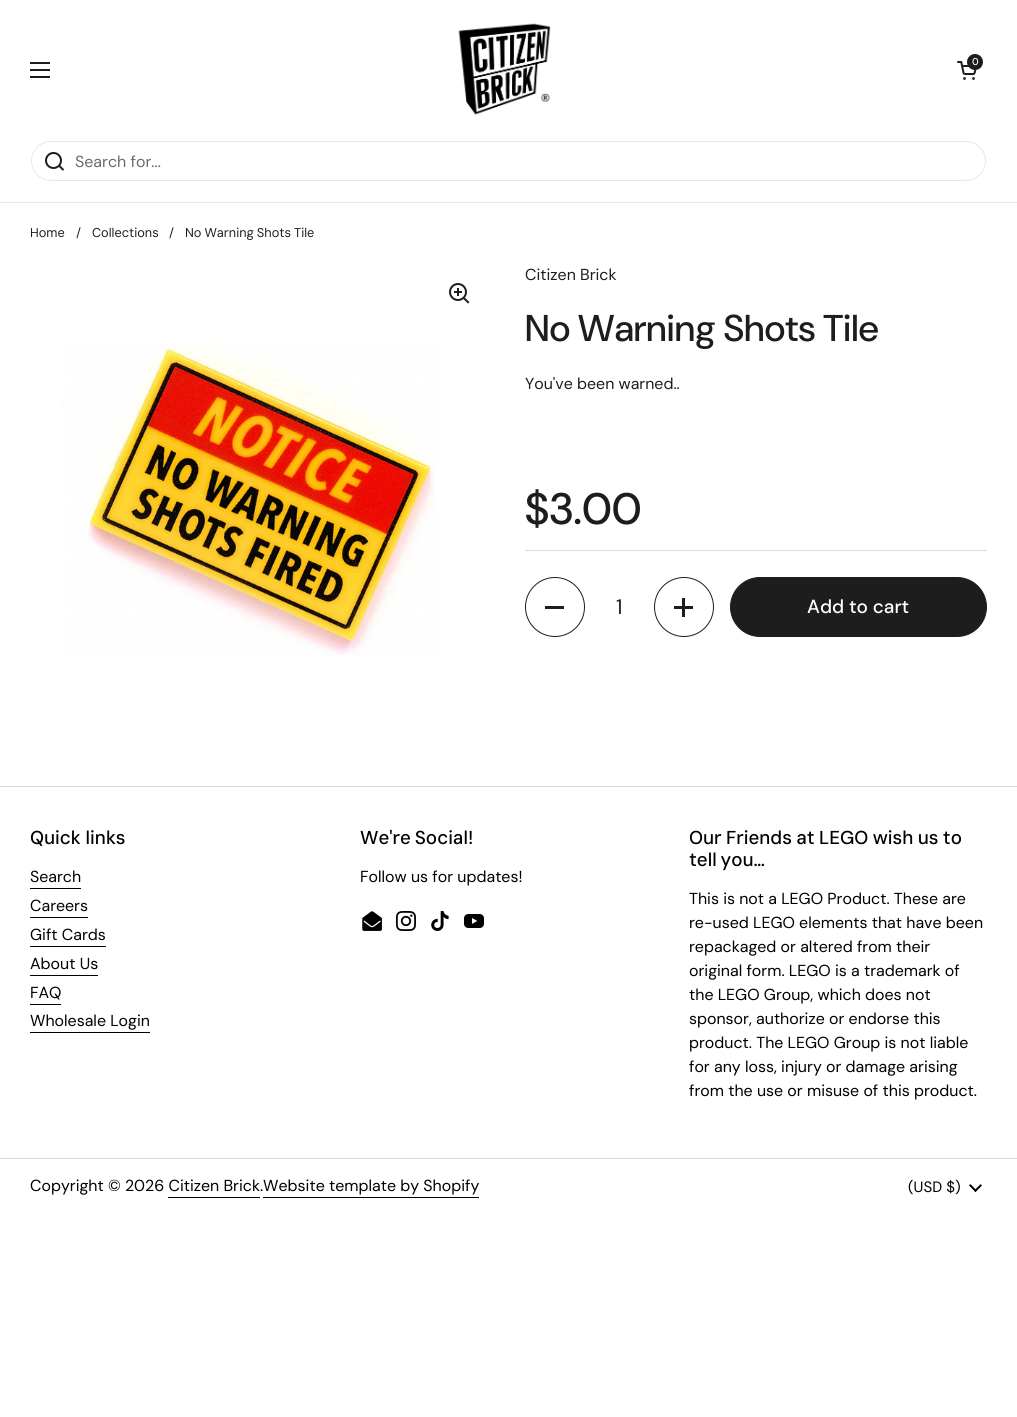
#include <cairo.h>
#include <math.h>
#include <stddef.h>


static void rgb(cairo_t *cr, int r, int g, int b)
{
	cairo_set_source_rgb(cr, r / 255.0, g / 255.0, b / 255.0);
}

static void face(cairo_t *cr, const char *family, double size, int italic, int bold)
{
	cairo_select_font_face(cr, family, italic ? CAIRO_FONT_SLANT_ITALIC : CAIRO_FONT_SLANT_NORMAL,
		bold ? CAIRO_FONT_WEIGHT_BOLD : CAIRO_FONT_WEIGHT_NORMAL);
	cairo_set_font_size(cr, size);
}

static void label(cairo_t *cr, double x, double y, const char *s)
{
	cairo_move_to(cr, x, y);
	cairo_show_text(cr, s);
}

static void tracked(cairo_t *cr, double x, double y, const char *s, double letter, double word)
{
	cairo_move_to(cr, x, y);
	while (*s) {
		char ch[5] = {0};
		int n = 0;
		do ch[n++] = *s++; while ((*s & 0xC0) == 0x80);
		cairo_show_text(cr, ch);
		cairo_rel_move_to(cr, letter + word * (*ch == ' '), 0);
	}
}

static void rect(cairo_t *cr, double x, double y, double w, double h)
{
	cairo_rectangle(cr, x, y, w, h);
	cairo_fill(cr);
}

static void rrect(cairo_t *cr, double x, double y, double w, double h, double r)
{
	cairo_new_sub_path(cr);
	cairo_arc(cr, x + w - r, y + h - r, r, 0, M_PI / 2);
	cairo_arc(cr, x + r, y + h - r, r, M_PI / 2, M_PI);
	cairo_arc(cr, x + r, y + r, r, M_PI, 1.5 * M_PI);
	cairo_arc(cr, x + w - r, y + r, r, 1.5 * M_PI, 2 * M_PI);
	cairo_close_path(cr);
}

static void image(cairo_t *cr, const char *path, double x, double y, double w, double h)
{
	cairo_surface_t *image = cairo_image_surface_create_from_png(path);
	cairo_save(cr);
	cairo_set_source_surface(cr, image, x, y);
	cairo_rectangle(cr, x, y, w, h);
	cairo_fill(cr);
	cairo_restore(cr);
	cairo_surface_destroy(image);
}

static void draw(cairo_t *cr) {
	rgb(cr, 255, 255, 255);
	cairo_paint(cr);
	rgb(cr, 29, 29, 29);
	rect(cr, 30, 62, 20, 2);
	rect(cr, 30, 69, 20, 2);
	rect(cr, 30, 76, 20, 2);
	image(cr, "image0.png", 458, 23, 93, 92);
	image(cr, "image1.png", 957, 61, 20, 19);
	cairo_arc(cr, 975, 62, 8, 0, 2 * M_PI);
	cairo_fill(cr);
	face(cr, "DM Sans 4 Medium", 10, 0, 0);
	rgb(cr, 255, 255, 255);
	label(cr, 972, 65, "0");
	rgb(cr, 232, 232, 232);
	rect(cr, 0, 202, 1017, 1);
	rrect(cr, 31.5, 141.5, 954, 39, 19.5);
	cairo_set_line_width(cr, 1);
	cairo_stroke(cr);
	image(cr, "image2.png", 45, 152, 19, 19);
	face(cr, "DM Sans 4", 16, 0, 0);
	rgb(cr, 106, 106, 106);
	label(cr, 75, 167, "Search for...");
	face(cr, "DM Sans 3", 12.75, 0, 0);
	rgb(cr, 29, 29, 29);
	label(cr, 30, 237, "Home");
	label(cr, 76, 237, "/");
	label(cr, 92, 237, "Collections");
	label(cr, 169, 237, "/");
	tracked(cr, 185, 237, "No Warning Shots Tile", 0, -0.5);
	image(cr, "image3.png", 449, 283, 21, 21);
	image(cr, "image4.png", 62, 343, 373, 313);
	face(cr, "DM Sans", 15.95, 0, 0);
	label(cr, 525, 280, "Citizen Brick");
	face(cr, "DM Sans Medium", 37.25, 0, 0);
	label(cr, 525, 341, "No Warning Shots Tile");
	face(cr, "DM Sans", 15.95, 0, 0);
	label(cr, 525, 389, "You've been warned..");
	face(cr, "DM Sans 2 Medium", 44, 0, 0);
	label(cr, 525, 524, "$3.00");
	rgb(cr, 221, 221, 221);
	rect(cr, 525, 550, 462, 1);
	cairo_new_path(cr);
	cairo_arc(cr, 555, 607, 29.5, 0, 2 * M_PI);
	rgb(cr, 29, 29, 29);
	cairo_stroke(cr);
	rect(cr, 545, 606, 19, 3);
	face(cr, "DM Sans 2", 21, 0, 0);
	label(cr, 616, 614, "1");
	cairo_new_path(cr);
	cairo_arc(cr, 684, 607, 29.5, 0, 2 * M_PI);
	cairo_stroke(cr);
	rect(cr, 682, 598, 3, 19);
	rect(cr, 674, 606, 19, 3);
	rrect(cr, 730.5, 577.5, 256, 59, 29.5);
	cairo_fill_preserve(cr);
	cairo_stroke(cr);
	face(cr, "DM Sans 3 Medium", 19, 0, 0);
	rgb(cr, 255, 255, 255);
	label(cr, 807, 613, "Add to cart");
	rgb(cr, 217, 217, 217);
	rect(cr, 0, 786, 1017, 1);
	face(cr, "DM Sans 4 Medium", 18.7, 0, 0);
	rgb(cr, 0, 0, 0);
	label(cr, 30, 844, "Quick links");
	face(cr, "DM Sans", 15.95, 0, 0);
	label(cr, 30, 882, "Search");
	rect(cr, 30, 888, 51, 1);
	label(cr, 30, 911, "Careers");
	rect(cr, 30, 917, 58, 1);
	label(cr, 30, 940, "Gift Cards");
	rect(cr, 30, 946, 76, 1);
	label(cr, 30, 969, "About Us");
	rect(cr, 30, 975, 68, 1);
	label(cr, 30, 998, "FAQ");
	rect(cr, 30, 1004, 31, 1);
	label(cr, 30, 1026, "Wholesale Login");
	rect(cr, 30, 1032, 120, 1);
	face(cr, "DM Sans 4 Medium", 18.7, 0, 0);
	tracked(cr, 360, 844, "We're Social!", 0, -1);
	face(cr, "DM Sans", 15.95, 0, 0);
	label(cr, 360, 882, "Follow us for updates!");
	image(cr, "image5.png", 362, 911, 20, 20);
	image(cr, "image6.png", 396, 911, 20, 20);
	image(cr, "image7.png", 431, 911, 18, 20);
	image(cr, "image8.png", 464, 914, 20, 14);
	face(cr, "DM Sans 4 Medium", 18.7, 0, 0);
	tracked(cr, 689, 844, "Our Friends at LEGO wish us to", 0, -0.5);
	tracked(cr, 689, 866, "tell you…", 0, -1);
	face(cr, "DM Sans", 15.95, 0, 0);
	label(cr, 689, 904, "This is not a LEGO Product. These are");
	label(cr, 689, 928, "re-used LEGO elements that have been");
	label(cr, 689, 952, "repackaged or altered from their");
	label(cr, 689, 976, "original form. LEGO is a trademark of");
	label(cr, 689, 1000, "the LEGO Group, which does not");
	label(cr, 689, 1024, "sponsor, authorize or endorse this");
	label(cr, 689, 1048, "product. The LEGO Group is not liable");
	label(cr, 689, 1072, "for any loss, injury or damage arising");
	label(cr, 689, 1096, "from the use or misuse of this product.");
	rgb(cr, 217, 217, 217);
	rect(cr, 0, 1158, 1017, 1);
	rgb(cr, 0, 0, 0);
	label(cr, 30, 1191, "Copyright © 2026 Citizen Brick.Website template by Shopify");
	rect(cr, 168, 1197, 92, 1);
	rect(cr, 263, 1197, 216, 1);
	face(cr, "DM Sans 3", 15, 0, 0);
	label(cr, 908, 1192, "(USD $)");
	image(cr, "image9.png", 969, 1184, 13, 8);
}

int main(void) {
	cairo_surface_t *surface = cairo_image_surface_create(CAIRO_FORMAT_RGB24, 1017, 1417);
	cairo_t *cr = cairo_create(surface);
	cairo_font_options_t *options = cairo_font_options_create();
	cairo_font_options_set_hint_metrics(options, CAIRO_HINT_METRICS_OFF);
	cairo_font_options_set_hint_style(options, CAIRO_HINT_STYLE_NONE);
	cairo_set_font_options(cr, options);
	cairo_set_miter_limit(cr, 4);
	draw(cr);
	cairo_surface_write_to_png(surface, "render.png");
	cairo_font_options_destroy(options);
	cairo_destroy(cr);
	cairo_surface_destroy(surface);
	return 0;
}
